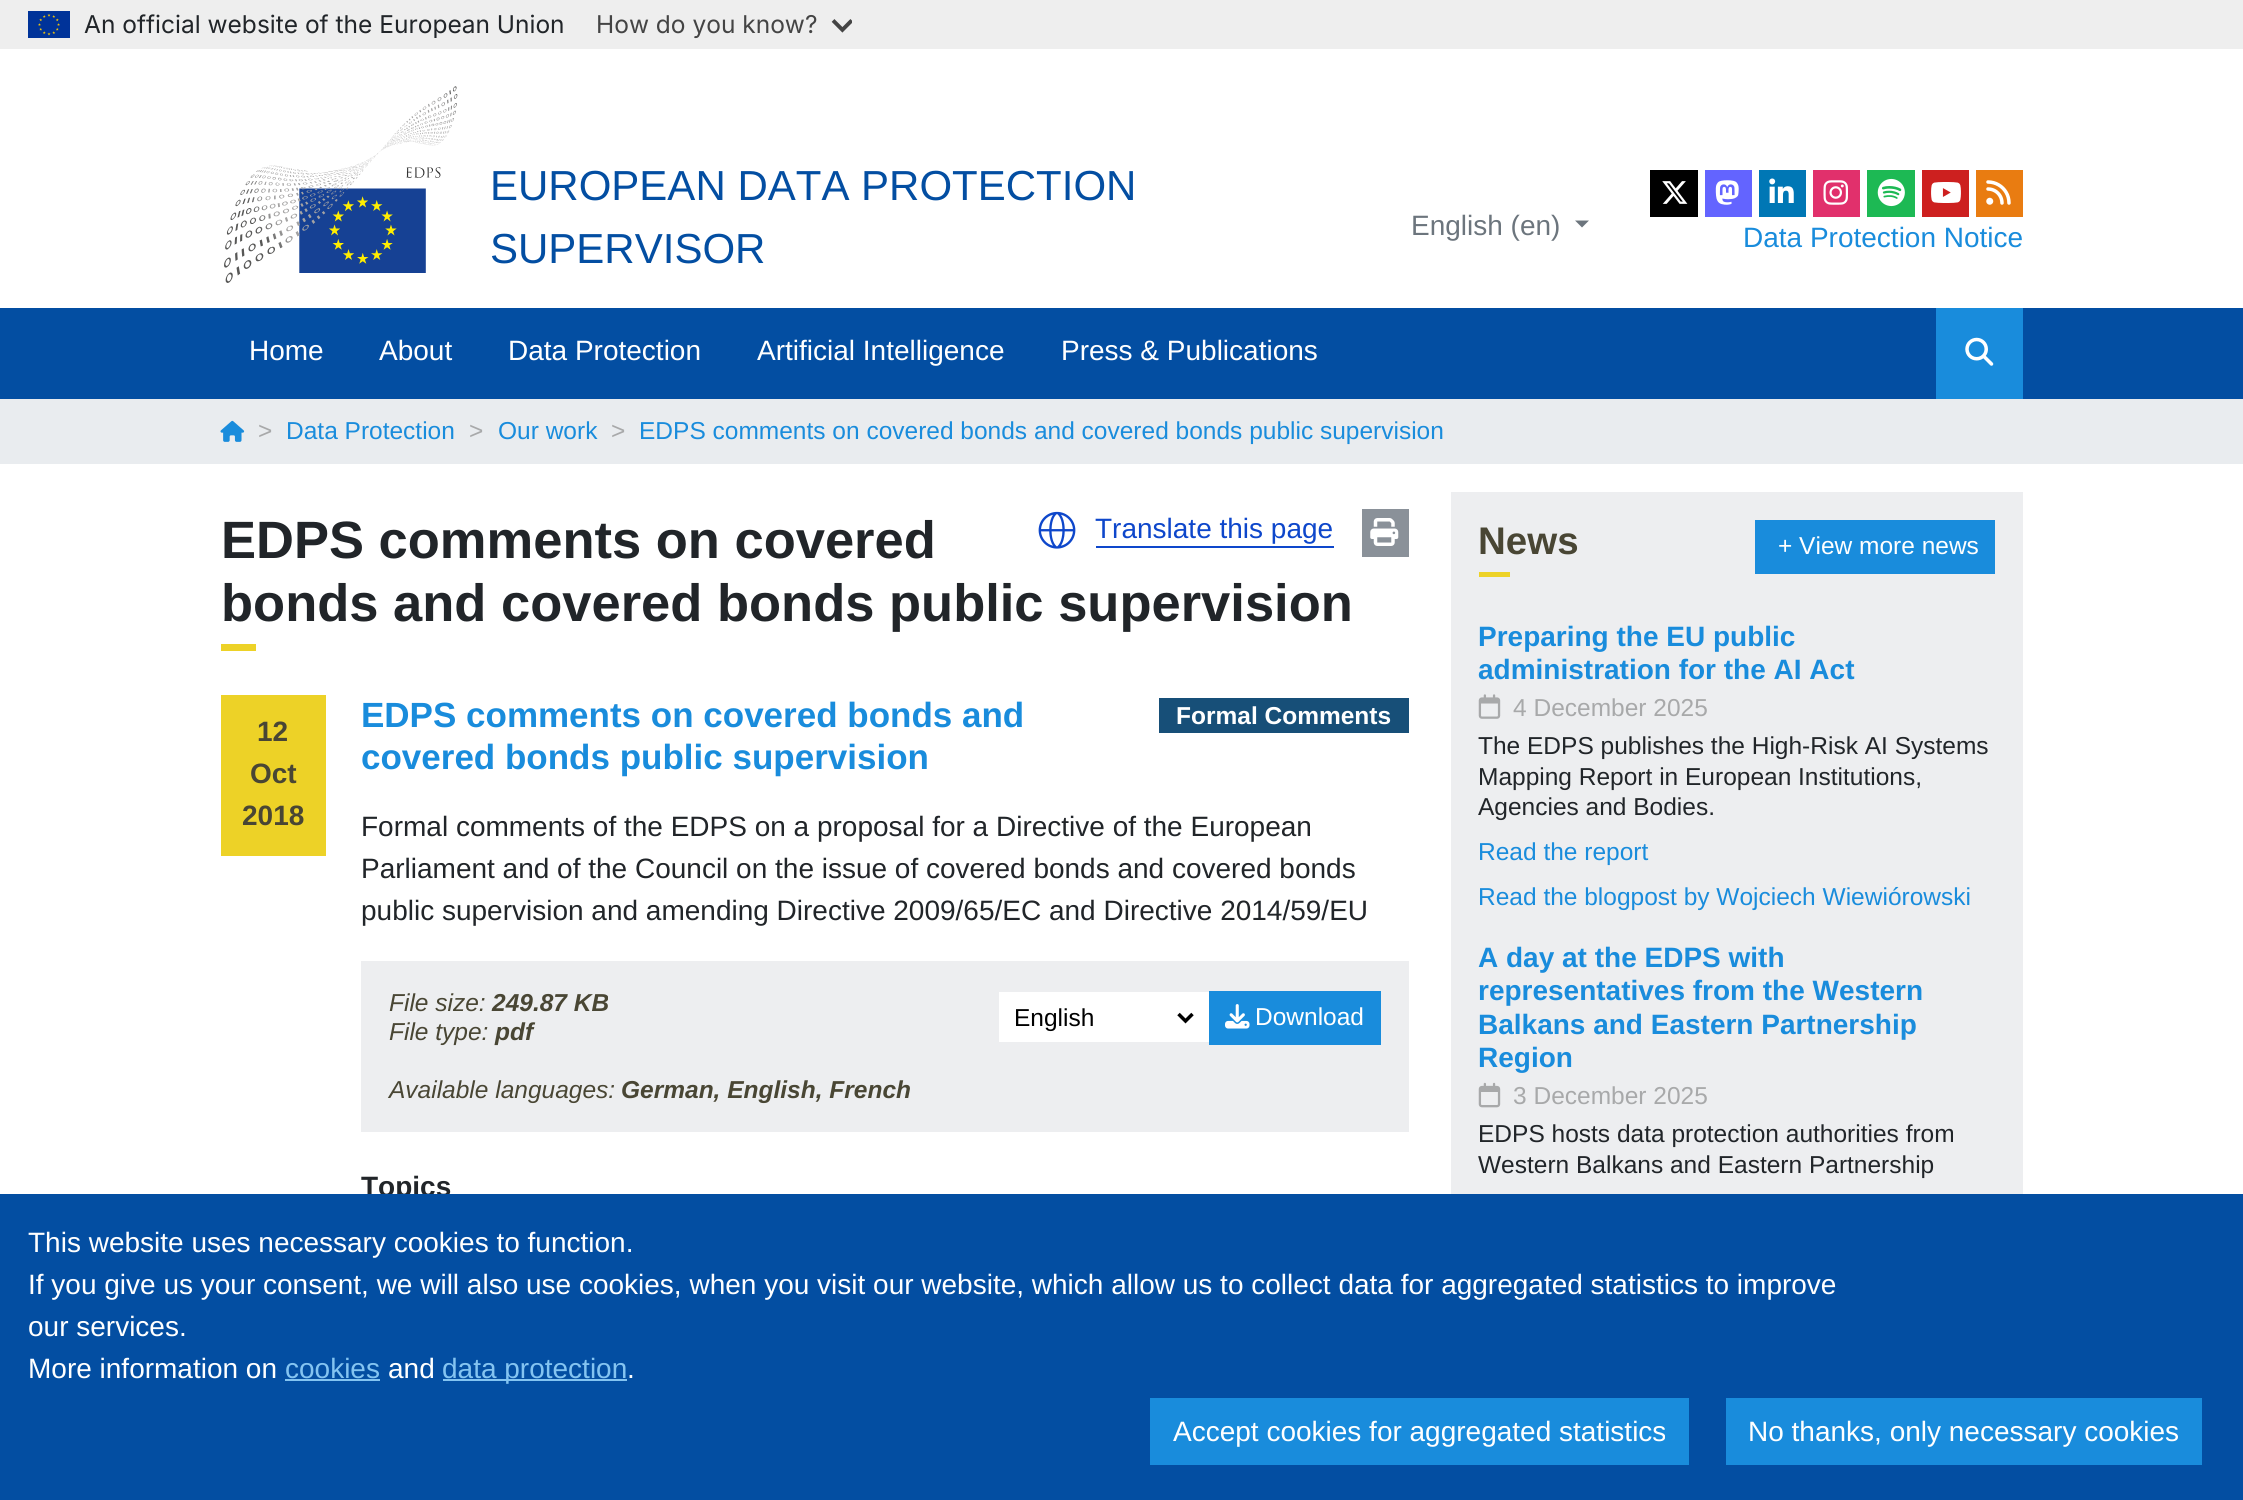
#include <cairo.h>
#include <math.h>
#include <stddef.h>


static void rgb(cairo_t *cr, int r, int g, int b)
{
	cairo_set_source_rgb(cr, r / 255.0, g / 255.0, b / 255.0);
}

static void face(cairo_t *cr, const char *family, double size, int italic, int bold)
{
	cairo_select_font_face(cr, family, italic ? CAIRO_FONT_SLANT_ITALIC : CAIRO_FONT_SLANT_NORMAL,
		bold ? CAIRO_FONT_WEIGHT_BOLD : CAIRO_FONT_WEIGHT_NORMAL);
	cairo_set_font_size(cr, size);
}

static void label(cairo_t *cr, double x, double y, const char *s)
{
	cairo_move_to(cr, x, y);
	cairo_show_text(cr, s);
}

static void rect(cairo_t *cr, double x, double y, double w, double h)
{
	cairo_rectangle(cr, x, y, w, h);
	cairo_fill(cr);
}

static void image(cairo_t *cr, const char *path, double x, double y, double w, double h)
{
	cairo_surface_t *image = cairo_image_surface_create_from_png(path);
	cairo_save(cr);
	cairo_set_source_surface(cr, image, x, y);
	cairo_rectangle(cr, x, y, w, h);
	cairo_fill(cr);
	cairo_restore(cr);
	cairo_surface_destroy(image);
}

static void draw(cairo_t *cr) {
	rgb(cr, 255, 255, 255);
	cairo_paint(cr);
	rgb(cr, 238, 238, 238);
	rect(cr, 0, 0, 2243, 49);
	image(cr, "image0.png", 28, 11, 42, 27);
	face(cr, "Inter", 24.5, 0, 0);
	rgb(cr, 33, 37, 41);
	label(cr, 84, 33, "An official website of the European Union");
	rgb(cr, 68, 68, 68);
	label(cr, 596, 33, "How do you know?");
	image(cr, "image1.png", 831, 19, 21, 14);
	image(cr, "image2.png", 224, 86, 234, 197);
	face(cr, "Liberation Sans", 42, 0, 0);
	rgb(cr, 3, 78, 162);
	label(cr, 490, 200, "EUROPEAN DATA PROTECTION");
	label(cr, 490, 263, "SUPERVISOR");
	face(cr, "Liberation Sans", 28, 0, 0);
	rgb(cr, 108, 117, 125);
	label(cr, 1411, 235, "English (en)");
	cairo_new_path(cr);
	cairo_move_to(cr, 1575, 220.5);
	cairo_line_to(cr, 1589, 220.5);
	cairo_line_to(cr, 1582, 227.5);
	cairo_close_path(cr);
	cairo_fill(cr);
	rgb(cr, 0, 0, 0);
	rect(cr, 1650, 170, 48, 47);
	image(cr, "image3.png", 1662, 181, 26, 23);
	rgb(cr, 99, 100, 255);
	rect(cr, 1705, 170, 47, 47);
	image(cr, "image4.png", 1715, 180, 24, 25);
	rgb(cr, 0, 119, 181);
	rect(cr, 1759, 170, 47, 47);
	image(cr, "image5.png", 1769, 178, 25, 25);
	rgb(cr, 225, 48, 108);
	rect(cr, 1813, 170, 47, 47);
	image(cr, "image6.png", 1823, 180, 25, 25);
	rgb(cr, 29, 185, 84);
	rect(cr, 1867, 170, 48, 47);
	image(cr, "image7.png", 1877, 178, 28, 29);
	rgb(cr, 205, 32, 31);
	rect(cr, 1922, 170, 47, 47);
	image(cr, "image8.png", 1931, 182, 30, 21);
	rgb(cr, 233, 124, 17);
	rect(cr, 1976, 170, 47, 47);
	image(cr, "image9.png", 1986, 180, 25, 25);
	rgb(cr, 25, 140, 220);
	label(cr, 1743, 247, "Data Protection Notice");
	rgb(cr, 3, 78, 162);
	rect(cr, 0, 308, 2243, 91);
	rgb(cr, 255, 255, 255);
	label(cr, 249, 360, "Home");
	label(cr, 379, 360, "About");
	label(cr, 508, 360, "Data Protection");
	label(cr, 757, 360, "Artificial Intelligence");
	label(cr, 1061, 360, "Press & Publications");
	rgb(cr, 25, 140, 220);
	rect(cr, 1936, 308, 87, 91);
	image(cr, "image10.png", 1965, 337, 29, 29);
	rgb(cr, 233, 236, 239);
	rect(cr, 0, 399, 2243, 65);
	image(cr, "image11.png", 220, 420, 25, 22);
	face(cr, "Liberation Sans", 24.5, 0, 0);
	rgb(cr, 168, 169, 170);
	label(cr, 258, 439, ">");
	rgb(cr, 25, 140, 220);
	label(cr, 286, 439, "Data Protection");
	rgb(cr, 168, 169, 170);
	label(cr, 469, 439, ">");
	rgb(cr, 25, 140, 220);
	label(cr, 498, 439, "Our work");
	rgb(cr, 168, 169, 170);
	label(cr, 611, 439, ">");
	rgb(cr, 25, 140, 220);
	label(cr, 639, 439, "EDPS comments on covered bonds and covered bonds public supervision");
	image(cr, "image12.png", 1038, 511, 38, 38);
	face(cr, "Liberation Sans", 28, 0, 0);
	rgb(cr, 14, 71, 203);
	label(cr, 1095, 538, "Translate this page");
	rect(cr, 1096, 546, 238, 2);
	rgb(cr, 138, 145, 153);
	rect(cr, 1362, 509, 47, 48);
	image(cr, "image13.png", 1370, 518, 29, 28);
	face(cr, "Liberation Sans", 52.5, 0, 1);
	rgb(cr, 33, 37, 41);
	label(cr, 221, 558, "EDPS comments on covered");
	label(cr, 221, 621, "bonds and covered bonds public supervision");
	rgb(cr, 237, 210, 39);
	rect(cr, 221, 644, 35, 7);
	rect(cr, 221, 695, 105, 161);
	face(cr, "Liberation Sans", 28, 0, 1);
	rgb(cr, 73, 70, 52);
	label(cr, 257, 741, "12");
	label(cr, 250, 783, "Oct");
	label(cr, 242, 825, "2018");
	face(cr, "Liberation Sans", 35, 0, 1);
	rgb(cr, 25, 140, 220);
	label(cr, 361, 727, "EDPS comments on covered bonds and");
	label(cr, 361, 769, "covered bonds public supervision");
	rgb(cr, 23, 79, 120);
	rect(cr, 1159, 698, 250, 35);
	face(cr, "Liberation Sans", 24.5, 0, 1);
	rgb(cr, 255, 255, 255);
	label(cr, 1176, 724, "Formal Comments");
	face(cr, "Liberation Sans", 28, 0, 0);
	rgb(cr, 33, 37, 41);
	label(cr, 361, 836, "Formal comments of the EDPS on a proposal for a Directive of the European");
	label(cr, 361, 878, "Parliament and of the Council on the issue of covered bonds and covered bonds");
	label(cr, 361, 920, "public supervision and amending Directive 2009/65/EC and Directive 2014/59/EU");
	rgb(cr, 237, 238, 240);
	rect(cr, 361, 961, 1048, 171);
	face(cr, "Liberation Sans", 24.5, 1, 0);
	rgb(cr, 73, 70, 52);
	label(cr, 389, 1011, "File size:");
	face(cr, "Liberation Sans", 24.5, 1, 1);
	label(cr, 492, 1011, "249.87 KB");
	face(cr, "Liberation Sans", 24.5, 1, 0);
	label(cr, 389, 1040, "File type:");
	face(cr, "Liberation Sans", 24.5, 1, 1);
	label(cr, 495, 1040, "pdf");
	rgb(cr, 255, 255, 255);
	rect(cr, 1001, 994, 200, 46);
	rect(cr, 999, 992, 210, 2);
	rect(cr, 1201, 992, 8, 49);
	rect(cr, 999, 1040, 210, 2);
	rect(cr, 999, 992, 2, 49);
	cairo_new_path(cr);
	cairo_move_to(cr, 1178.5, 1014);
	cairo_line_to(cr, 1185.5, 1021);
	cairo_line_to(cr, 1192.5, 1014);
	rgb(cr, 0, 0, 0);
	cairo_set_line_width(cr, 3.5);
	cairo_stroke(cr);
	face(cr, "Liberation Sans", 24.5, 0, 0);
	label(cr, 1014, 1026, "English");
	rgb(cr, 25, 140, 220);
	rect(cr, 1209, 991, 172, 54);
	image(cr, "image14.png", 1225, 1004, 25, 25);
	rgb(cr, 255, 255, 255);
	label(cr, 1255, 1025, "Download");
	face(cr, "Liberation Sans", 24.5, 1, 0);
	rgb(cr, 73, 70, 52);
	label(cr, 389, 1098, "Available languages:");
	face(cr, "Liberation Sans", 24.5, 1, 1);
	label(cr, 621, 1098, "German, English, French");
	face(cr, "Liberation Sans", 28, 0, 1);
	rgb(cr, 33, 37, 41);
	label(cr, 361, 1196, "Topics");
	rgb(cr, 237, 238, 240);
	rect(cr, 1451, 492, 572, 702);
	face(cr, "Liberation Sans", 38.5, 0, 1);
	rgb(cr, 73, 70, 52);
	label(cr, 1478, 554, "News");
	rgb(cr, 237, 210, 39);
	rect(cr, 1479, 572, 31, 5);
	rgb(cr, 25, 140, 220);
	rect(cr, 1755, 520, 240, 54);
	face(cr, "Liberation Sans", 24.5, 0, 0);
	rgb(cr, 255, 255, 255);
	label(cr, 1778, 554, "+ View more news");
	face(cr, "Liberation Sans", 28, 0, 1);
	rgb(cr, 25, 140, 220);
	label(cr, 1478, 646, "Preparing the EU public");
	label(cr, 1478, 679, "administration for the AI Act");
	image(cr, "image15.png", 1478, 694, 23, 25);
	face(cr, "Liberation Sans", 24.5, 0, 0);
	rgb(cr, 168, 169, 170);
	label(cr, 1513, 716, "4 December 2025");
	rgb(cr, 33, 37, 41);
	label(cr, 1478, 754, "The EDPS publishes the High-Risk AI Systems");
	label(cr, 1478, 785, "Mapping Report in European Institutions,");
	label(cr, 1478, 815, "Agencies and Bodies.");
	rgb(cr, 25, 140, 220);
	label(cr, 1478, 860, "Read the report");
	label(cr, 1478, 905, "Read the blogpost by Wojciech Wiewiórowski");
	face(cr, "Liberation Sans", 28, 0, 1);
	label(cr, 1478, 967, "A day at the EDPS with");
	label(cr, 1478, 1000, "representatives from the Western");
	label(cr, 1478, 1034, "Balkans and Eastern Partnership");
	label(cr, 1478, 1067, "Region");
	image(cr, "image16.png", 1478, 1082, 23, 26);
	face(cr, "Liberation Sans", 24.5, 0, 0);
	rgb(cr, 168, 169, 170);
	label(cr, 1513, 1104, "3 December 2025");
	rgb(cr, 33, 37, 41);
	label(cr, 1478, 1142, "EDPS hosts data protection authorities from");
	label(cr, 1478, 1173, "Western Balkans and Eastern Partnership");
	rgb(cr, 3, 78, 162);
	rect(cr, 0, 1194, 2243, 306);
	face(cr, "Liberation Sans", 28, 0, 0);
	rgb(cr, 255, 255, 255);
	label(cr, 28, 1252, "This website uses necessary cookies to function.");
	label(cr, 28, 1294, "If you give us your consent, we will also use cookies, when you visit our website, which allow us to collect data for aggregated statistics to improve");
	label(cr, 28, 1336, "our services.");
	label(cr, 28, 1378, "More information on");
	rgb(cr, 132, 196, 241);
	label(cr, 285, 1378, "cookies");
	rect(cr, 285, 1379, 95, 2);
	rgb(cr, 255, 255, 255);
	label(cr, 388, 1378, "and");
	rgb(cr, 132, 196, 241);
	rect(cr, 443, 1379, 184, 2);
	label(cr, 442, 1378, "data protection");
	rgb(cr, 255, 255, 255);
	label(cr, 627, 1378, ".");
	rgb(cr, 25, 140, 220);
	rect(cr, 1150, 1398, 539, 67);
	rgb(cr, 255, 255, 255);
	label(cr, 1173, 1441, "Accept cookies for aggregated statistics");
	rgb(cr, 25, 140, 220);
	rect(cr, 1726, 1398, 476, 67);
	rgb(cr, 255, 255, 255);
	label(cr, 1748, 1441, "No thanks, only necessary cookies");
}

int main(void) {
	cairo_surface_t *surface = cairo_image_surface_create(CAIRO_FORMAT_RGB24, 2243, 1500);
	cairo_t *cr = cairo_create(surface);
	cairo_font_options_t *options = cairo_font_options_create();
	cairo_font_options_set_hint_metrics(options, CAIRO_HINT_METRICS_OFF);
	cairo_font_options_set_hint_style(options, CAIRO_HINT_STYLE_NONE);
	cairo_set_font_options(cr, options);
	cairo_set_miter_limit(cr, 4);
	draw(cr);
	cairo_surface_write_to_png(surface, "render.png");
	cairo_font_options_destroy(options);
	cairo_destroy(cr);
	cairo_surface_destroy(surface);
	return 0;
}
